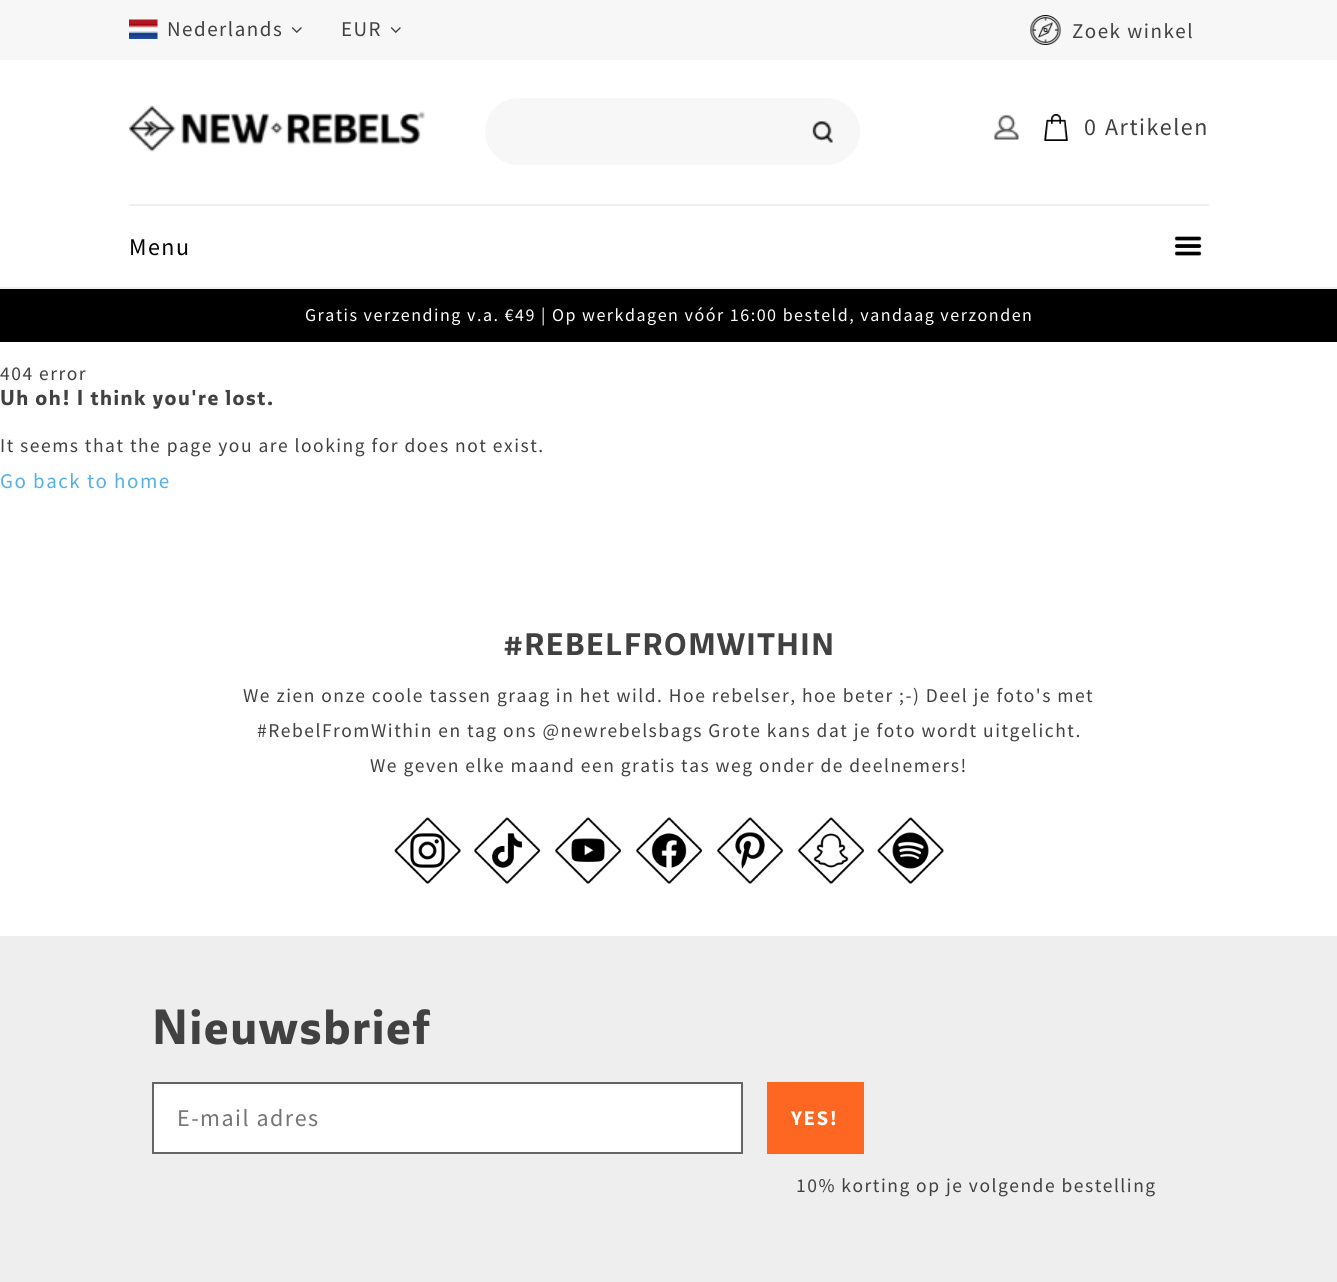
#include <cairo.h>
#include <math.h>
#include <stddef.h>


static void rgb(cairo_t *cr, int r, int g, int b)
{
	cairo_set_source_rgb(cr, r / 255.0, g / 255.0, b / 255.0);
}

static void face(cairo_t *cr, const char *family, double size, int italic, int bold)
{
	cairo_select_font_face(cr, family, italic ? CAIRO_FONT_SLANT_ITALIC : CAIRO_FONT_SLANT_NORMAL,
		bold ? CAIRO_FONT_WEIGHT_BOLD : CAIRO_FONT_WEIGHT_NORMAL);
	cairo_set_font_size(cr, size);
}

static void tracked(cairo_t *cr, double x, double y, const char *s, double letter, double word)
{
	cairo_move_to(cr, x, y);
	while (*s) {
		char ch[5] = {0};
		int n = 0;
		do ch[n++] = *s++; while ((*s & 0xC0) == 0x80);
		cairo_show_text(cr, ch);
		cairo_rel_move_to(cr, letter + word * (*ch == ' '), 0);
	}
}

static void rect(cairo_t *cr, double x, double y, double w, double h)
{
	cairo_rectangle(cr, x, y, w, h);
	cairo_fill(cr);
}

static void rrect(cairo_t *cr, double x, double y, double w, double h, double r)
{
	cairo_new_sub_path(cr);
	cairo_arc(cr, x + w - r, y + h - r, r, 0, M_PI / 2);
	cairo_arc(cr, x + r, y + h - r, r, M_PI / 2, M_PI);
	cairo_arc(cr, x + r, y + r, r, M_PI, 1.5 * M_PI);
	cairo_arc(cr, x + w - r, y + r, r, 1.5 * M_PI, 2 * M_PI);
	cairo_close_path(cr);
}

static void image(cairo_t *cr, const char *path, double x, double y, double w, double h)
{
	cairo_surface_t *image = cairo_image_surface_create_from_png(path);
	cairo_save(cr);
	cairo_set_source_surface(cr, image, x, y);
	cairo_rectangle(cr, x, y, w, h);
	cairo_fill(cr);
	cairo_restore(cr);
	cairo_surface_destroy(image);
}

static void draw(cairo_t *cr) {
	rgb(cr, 255, 255, 255);
	cairo_paint(cr);
	rgb(cr, 247, 247, 247);
	rect(cr, 0, 0, 1337, 60);
	rgb(cr, 238, 238, 238);
	rect(cr, 0, 287, 1337, 2);
	image(cr, "image0.png", 129, 19, 29, 20);
	face(cr, "Source Sans Pro", 21, 0, 0);
	rgb(cr, 65, 65, 65);
	tracked(cr, 167, 36, "Nederlands", 1.5, 0);
	image(cr, "image1.png", 291, 27, 11, 6);
	tracked(cr, 341, 36, "EUR", 1.5, 0);
	image(cr, "image1.png", 390, 27, 11, 6);
	image(cr, "image2.png", 1030, 15, 31, 30);
	tracked(cr, 1072, 38, "Zoek winkel", 1.5, 0);
	image(cr, "image3.png", 129, 105, 296, 47);
	rgb(cr, 247, 247, 247);
	rrect(cr, 485, 98, 375, 67, 33.5);
	cairo_fill(cr);
	image(cr, "image4.png", 812, 121, 21, 22);
	image(cr, "image5.png", 994, 114, 25, 26);
	image(cr, "image6.png", 1044, 114, 24, 27);
	face(cr, "Source Sans Pro", 24, 0, 0);
	rgb(cr, 65, 65, 65);
	tracked(cr, 1084, 135, "0", 1.5, 0);
	tracked(cr, 1105, 135, "Artikelen", 1.5, 0);
	rgb(cr, 240, 240, 240);
	rect(cr, 129, 204, 1080, 2);
	rgb(cr, 0, 0, 0);
	tracked(cr, 129, 255, "Menu", 1.5, 0);
	image(cr, "image7.png", 1174, 236, 28, 20);
	rect(cr, 0, 289, 1337, 53);
	face(cr, "Source Sans Pro", 18, 0, 0);
	rgb(cr, 255, 255, 255);
	tracked(cr, 305, 321, "Gratis verzending v.a. €49 | Op werkdagen vóór 16:00 besteld, vandaag verzonden", 1.5, 0);
	face(cr, "Source Sans Pro", 19.5, 0, 0);
	rgb(cr, 65, 65, 65);
	tracked(cr, 0, 380, "404 error", 1.5, 0);
	face(cr, "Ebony", 21, 0, 1);
	tracked(cr, 0, 405, "Uh oh! I think you're lost.", 1.5, 0);
	face(cr, "Source Sans Pro", 19.5, 0, 0);
	tracked(cr, 0, 452, "It seems that the page you are looking for does not exist.", 1.5, 0);
	face(cr, "Source Sans Pro", 21, 0, 0);
	rgb(cr, 84, 175, 233);
	tracked(cr, 0, 488, "Go back to home", 1.5, 0);
	face(cr, "Ebony", 30.25, 0, 1);
	rgb(cr, 65, 65, 65);
	tracked(cr, 504, 655, "#REBELFROMWITHIN", 1.5, 0);
	face(cr, "Source Sans Pro", 19.5, 0, 0);
	tracked(cr, 243, 702, "We zien onze coole tassen graag in het wild. Hoe rebelser, hoe beter ;-) Deel je foto's met", 1.5, 0);
	tracked(cr, 257, 737, "#RebelFromWithin en tag ons @newrebelsbags Grote kans dat je foto wordt uitgelicht.", 1.5, 0);
	tracked(cr, 370, 772, "We geven elke maand een gratis tas weg onder de deelnemers!", 1.5, 0);
	image(cr, "image8.png", 394, 817, 67, 67);
	image(cr, "image9.png", 474, 817, 66, 67);
	image(cr, "image10.png", 555, 817, 66, 67);
	image(cr, "image11.png", 636, 817, 66, 67);
	image(cr, "image12.png", 717, 817, 66, 67);
	image(cr, "image13.png", 798, 817, 66, 67);
	image(cr, "image14.png", 877, 817, 67, 67);
	rgb(cr, 238, 238, 238);
	rect(cr, 0, 936, 1337, 346);
	face(cr, "Ebony", 48, 0, 1);
	rgb(cr, 65, 65, 65);
	tracked(cr, 152, 1044, "Nieuwsbrief", 1.5, 0);
	rgb(cr, 255, 255, 255);
	cairo_rectangle(cr, 153, 1083, 589, 70);
	cairo_fill_preserve(cr);
	rgb(cr, 101, 101, 101);
	cairo_stroke(cr);
	face(cr, "Source Sans Pro", 24, 0, 0);
	rgb(cr, 117, 117, 117);
	tracked(cr, 177, 1126, "E-mail adres", 1.5, 0);
	rgb(cr, 253, 103, 33);
	rect(cr, 767, 1082, 97, 72);
	face(cr, "Source Sans Pro", 21, 0, 1);
	rgb(cr, 255, 255, 255);
	tracked(cr, 791, 1125, "YES!", 1.5, 0);
	face(cr, "Source Sans Pro", 19.5, 0, 0);
	rgb(cr, 65, 65, 65);
	tracked(cr, 796, 1192, "10% korting op je volgende bestelling", 1.5, 0);
}

int main(void) {
	cairo_surface_t *surface = cairo_image_surface_create(CAIRO_FORMAT_RGB24, 1337, 1282);
	cairo_t *cr = cairo_create(surface);
	cairo_font_options_t *options = cairo_font_options_create();
	cairo_font_options_set_hint_metrics(options, CAIRO_HINT_METRICS_OFF);
	cairo_font_options_set_hint_style(options, CAIRO_HINT_STYLE_NONE);
	cairo_set_font_options(cr, options);
	cairo_set_miter_limit(cr, 4);
	draw(cr);
	cairo_surface_write_to_png(surface, "render.png");
	cairo_font_options_destroy(options);
	cairo_destroy(cr);
	cairo_surface_destroy(surface);
	return 0;
}
